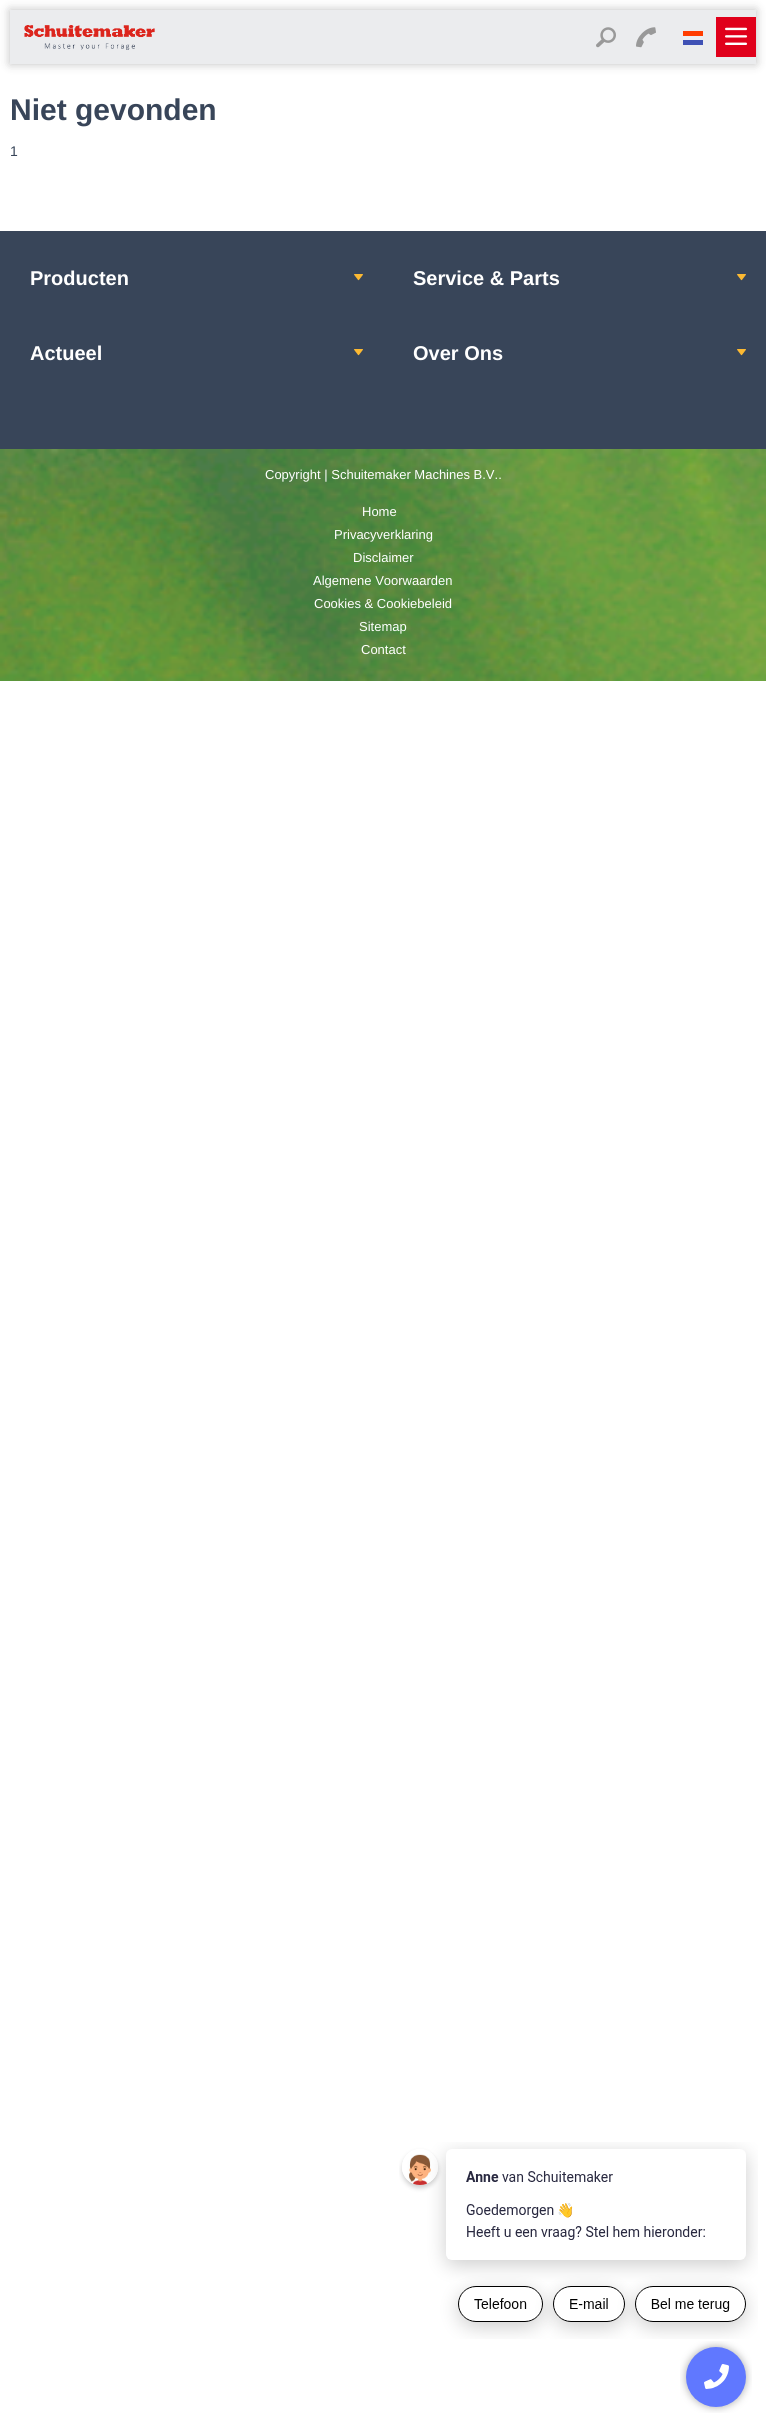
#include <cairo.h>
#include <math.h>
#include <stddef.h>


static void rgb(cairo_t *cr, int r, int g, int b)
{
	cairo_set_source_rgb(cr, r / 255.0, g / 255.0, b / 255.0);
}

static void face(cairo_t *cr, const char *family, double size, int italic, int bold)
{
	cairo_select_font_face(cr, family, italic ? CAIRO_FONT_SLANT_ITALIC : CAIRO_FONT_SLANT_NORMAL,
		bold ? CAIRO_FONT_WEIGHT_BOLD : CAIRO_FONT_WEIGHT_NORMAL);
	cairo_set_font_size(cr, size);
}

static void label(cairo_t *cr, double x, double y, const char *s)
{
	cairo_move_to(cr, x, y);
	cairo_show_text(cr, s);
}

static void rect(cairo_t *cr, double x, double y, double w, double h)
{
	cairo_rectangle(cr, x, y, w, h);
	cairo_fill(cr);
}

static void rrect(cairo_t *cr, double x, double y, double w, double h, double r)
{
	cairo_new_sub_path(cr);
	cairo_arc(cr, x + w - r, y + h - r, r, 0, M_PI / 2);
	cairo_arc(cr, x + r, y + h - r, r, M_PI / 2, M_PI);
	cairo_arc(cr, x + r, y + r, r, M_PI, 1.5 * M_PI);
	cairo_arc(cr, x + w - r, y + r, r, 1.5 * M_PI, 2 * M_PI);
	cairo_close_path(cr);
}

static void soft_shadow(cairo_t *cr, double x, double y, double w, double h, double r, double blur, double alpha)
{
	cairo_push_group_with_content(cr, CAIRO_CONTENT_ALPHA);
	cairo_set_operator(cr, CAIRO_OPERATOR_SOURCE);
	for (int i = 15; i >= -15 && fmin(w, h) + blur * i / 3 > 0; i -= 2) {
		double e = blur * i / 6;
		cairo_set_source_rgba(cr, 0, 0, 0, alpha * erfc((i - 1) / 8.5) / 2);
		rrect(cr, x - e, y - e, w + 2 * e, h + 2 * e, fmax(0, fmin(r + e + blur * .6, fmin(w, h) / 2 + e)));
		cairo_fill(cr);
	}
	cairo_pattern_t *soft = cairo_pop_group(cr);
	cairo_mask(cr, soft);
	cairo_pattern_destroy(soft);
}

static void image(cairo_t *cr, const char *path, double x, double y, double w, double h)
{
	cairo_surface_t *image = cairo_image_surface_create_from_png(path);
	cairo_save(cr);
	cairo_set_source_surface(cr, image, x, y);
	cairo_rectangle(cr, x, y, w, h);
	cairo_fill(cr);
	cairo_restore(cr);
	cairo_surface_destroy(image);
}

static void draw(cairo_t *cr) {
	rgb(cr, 255, 255, 255);
	cairo_paint(cr);
	rgb(cr, 0, 0, 0);
	soft_shadow(cr, 10, 10, 746, 54, 0, 5, 0.25);
	rgb(cr, 235, 236, 238);
	rect(cr, 10, 10, 746, 54);
	image(cr, "image0.png", 24, 25, 131, 25);
	image(cr, "image1.png", 596, 27, 20, 21);
	image(cr, "image2.png", 636, 27, 20, 21);
	rgb(cr, 63, 81, 181);
	rect(cr, 683, 40, 20, 5);
	rgb(cr, 236, 239, 241);
	rect(cr, 683, 36, 20, 4);
	rgb(cr, 255, 61, 0);
	rect(cr, 683, 31, 20, 5);
	rgb(cr, 224, 0, 27);
	rect(cr, 716, 17, 40, 40);
	image(cr, "image3.png", 725, 27, 23, 18);
	face(cr, "Liberation Sans", 30, 0, 1);
	rgb(cr, 56, 69, 89);
	label(cr, 10, 120, "Niet gevonden");
	face(cr, "Liberation Sans", 14, 0, 0);
	label(cr, 10, 156, "1");
	rect(cr, 0, 231, 766, 218);
	face(cr, "Liberation Sans", 20, 0, 1);
	rgb(cr, 255, 255, 255);
	label(cr, 30, 285, "Producten");
	image(cr, "image4.png", 354, 274, 9, 7);
	label(cr, 413, 285, "Service & Parts");
	image(cr, "image4.png", 737, 274, 9, 7);
	label(cr, 30, 360, "Actueel");
	image(cr, "image4.png", 354, 349, 9, 7);
	label(cr, 413, 360, "Over Ons");
	image(cr, "image4.png", 737, 349, 9, 7);
	image(cr, "image5.png", 0, 449, 766, 232);
	face(cr, "Liberation Sans", 13, 0, 0);
	label(cr, 265, 479, "Copyright | Schuitemaker Machines B.V..");
	label(cr, 362, 516, "Home");
	label(cr, 334, 539, "Privacyverklaring");
	label(cr, 353, 562, "Disclaimer");
	label(cr, 313, 585, "Algemene Voorwaarden");
	label(cr, 314, 608, "Cookies & Cookiebeleid");
	label(cr, 359, 631, "Sitemap");
	label(cr, 361, 654, "Contact");
	image(cr, "image6.png", 399, 2142, 359, 197);
	image(cr, "image7.png", 680, 2341, 72, 72);
}

int main(void) {
	cairo_surface_t *surface = cairo_image_surface_create(CAIRO_FORMAT_RGB24, 766, 2427);
	cairo_t *cr = cairo_create(surface);
	cairo_font_options_t *options = cairo_font_options_create();
	cairo_font_options_set_hint_metrics(options, CAIRO_HINT_METRICS_OFF);
	cairo_font_options_set_hint_style(options, CAIRO_HINT_STYLE_NONE);
	cairo_set_font_options(cr, options);
	cairo_set_miter_limit(cr, 4);
	draw(cr);
	cairo_surface_write_to_png(surface, "render.png");
	cairo_font_options_destroy(options);
	cairo_destroy(cr);
	cairo_surface_destroy(surface);
	return 0;
}
